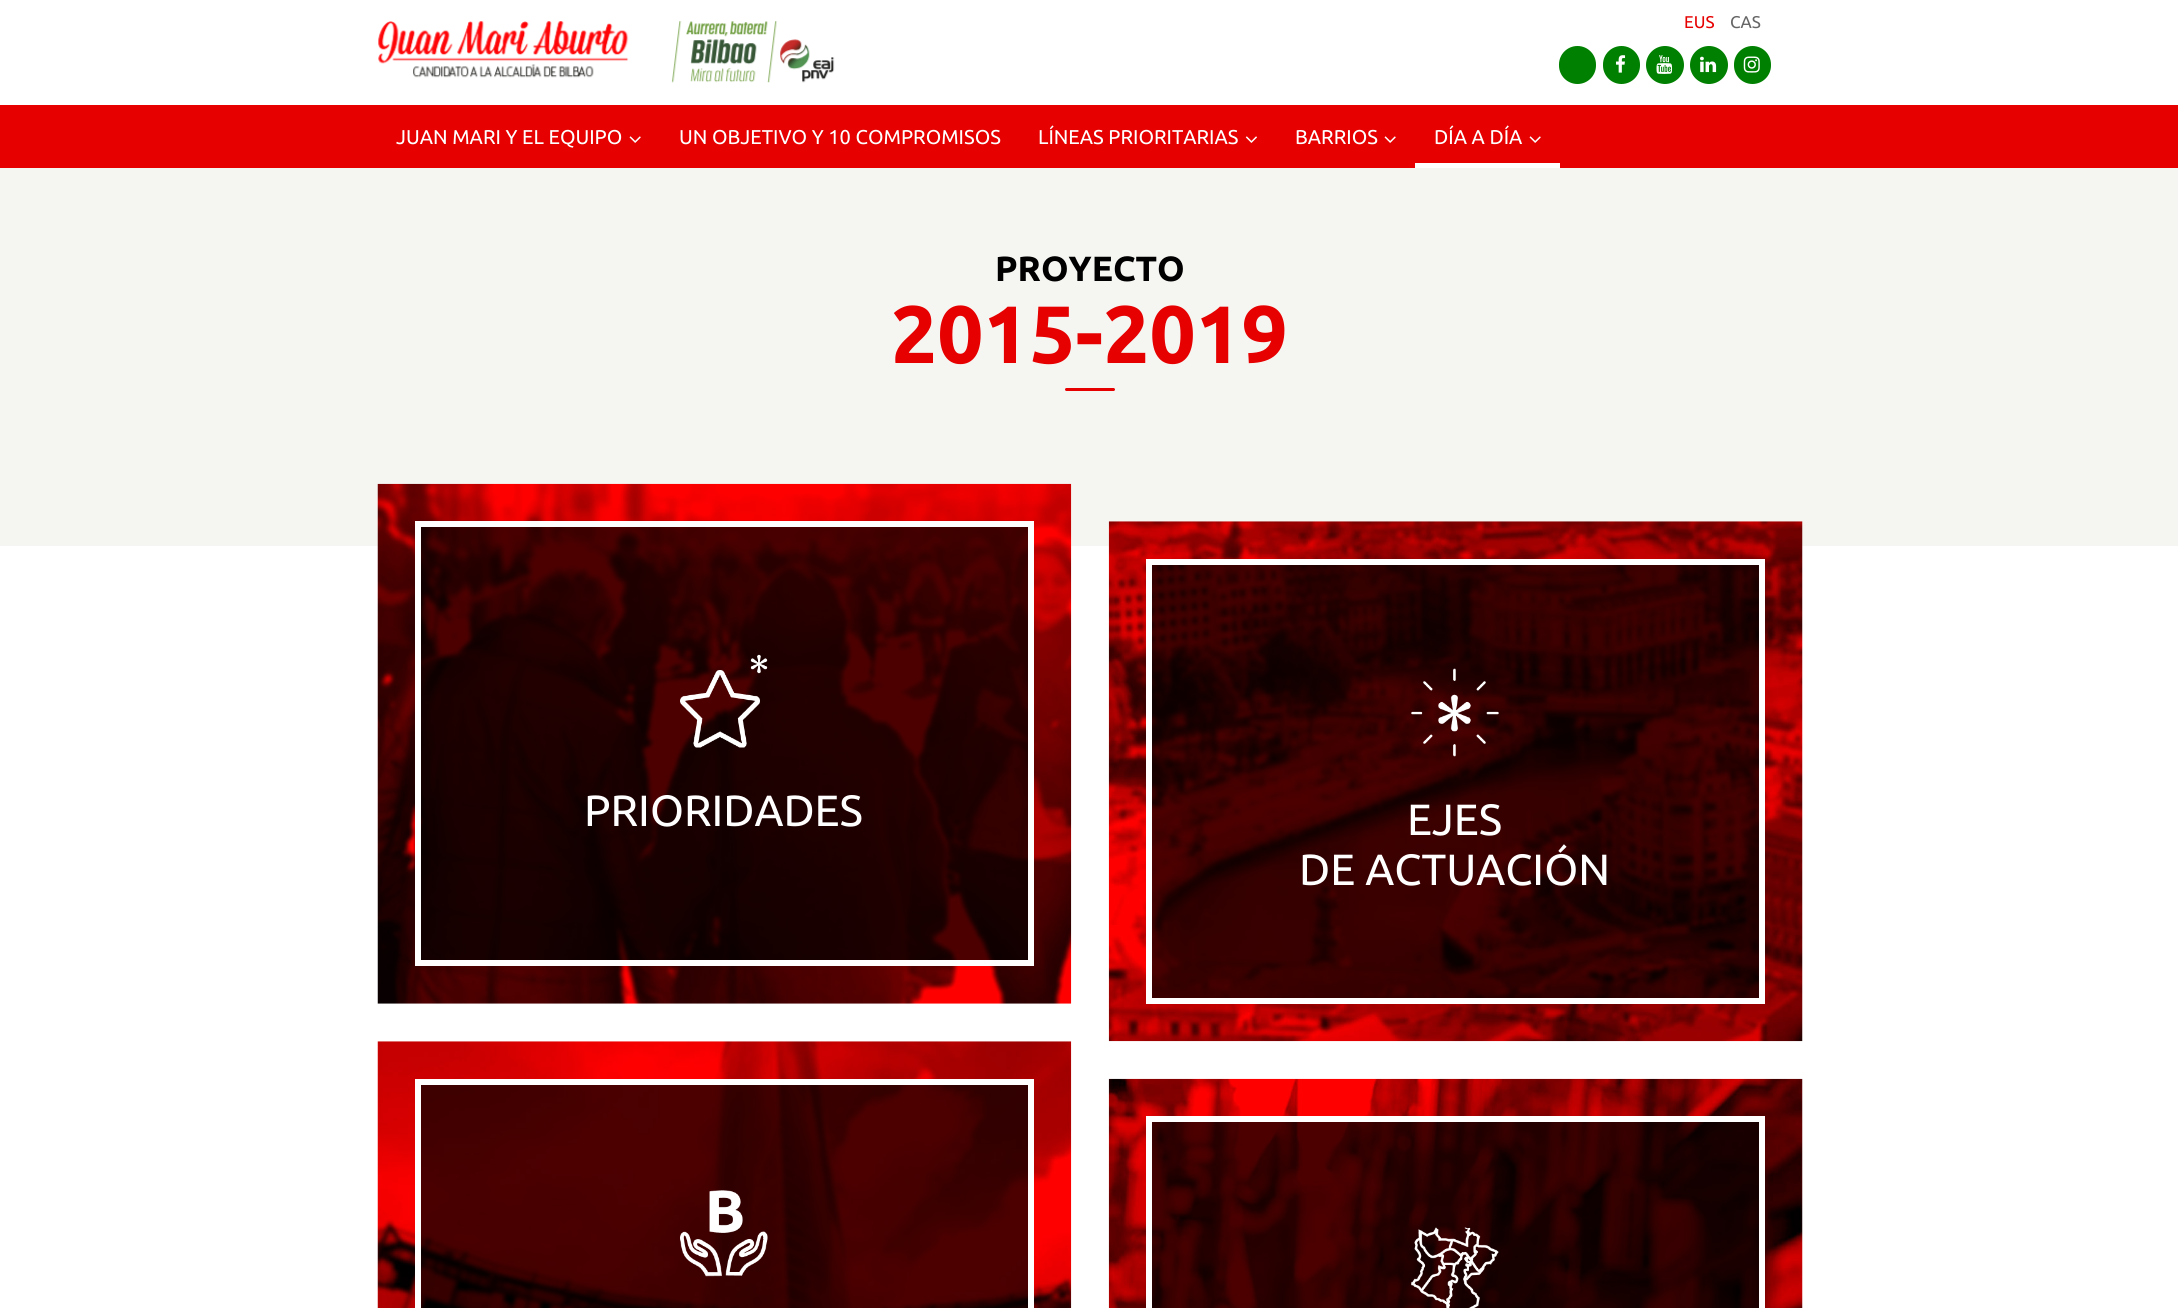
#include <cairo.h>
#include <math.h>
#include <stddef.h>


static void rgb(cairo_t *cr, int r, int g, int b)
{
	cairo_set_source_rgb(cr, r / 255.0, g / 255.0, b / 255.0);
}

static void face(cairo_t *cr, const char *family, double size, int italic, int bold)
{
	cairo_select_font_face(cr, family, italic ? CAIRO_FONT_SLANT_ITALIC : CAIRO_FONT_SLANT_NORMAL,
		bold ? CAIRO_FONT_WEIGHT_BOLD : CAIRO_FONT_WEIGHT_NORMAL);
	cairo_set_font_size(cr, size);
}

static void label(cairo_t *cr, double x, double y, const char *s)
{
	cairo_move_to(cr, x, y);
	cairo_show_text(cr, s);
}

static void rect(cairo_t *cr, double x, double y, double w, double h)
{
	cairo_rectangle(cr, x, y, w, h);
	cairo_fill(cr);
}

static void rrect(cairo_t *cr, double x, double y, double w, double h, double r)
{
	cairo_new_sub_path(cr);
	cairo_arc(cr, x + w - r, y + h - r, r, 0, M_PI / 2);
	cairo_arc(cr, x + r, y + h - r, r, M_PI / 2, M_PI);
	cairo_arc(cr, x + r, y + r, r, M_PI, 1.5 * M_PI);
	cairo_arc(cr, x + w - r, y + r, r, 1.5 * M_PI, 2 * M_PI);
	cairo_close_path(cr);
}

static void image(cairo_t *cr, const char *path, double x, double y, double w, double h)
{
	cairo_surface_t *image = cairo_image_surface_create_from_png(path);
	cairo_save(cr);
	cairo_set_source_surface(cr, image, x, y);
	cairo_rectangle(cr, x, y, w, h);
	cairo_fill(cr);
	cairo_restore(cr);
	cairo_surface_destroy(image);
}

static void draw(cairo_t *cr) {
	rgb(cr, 255, 255, 255);
	cairo_paint(cr);
	image(cr, "image0.png", 378, 21, 251, 57);
	image(cr, "image1.png", 671, 21, 164, 62);
	face(cr, "Ubuntu", 17, 0, 0);
	rgb(cr, 230, 0, 0);
	label(cr, 1684, 28, "EUS");
	rgb(cr, 102, 102, 102);
	label(cr, 1730, 28, "CAS");
	rgb(cr, 0, 128, 0);
	rrect(cr, 1559, 46, 37, 38, 18.5);
	cairo_fill(cr);
	rrect(cr, 1603, 46, 37, 38, 18.5);
	cairo_fill(cr);
	image(cr, "image2.png", 1616, 55, 10, 18);
	cairo_arc(cr, 1665, 65, 19, 0, 2 * M_PI);
	cairo_fill(cr);
	image(cr, "image3.png", 1656, 55, 17, 19);
	cairo_arc(cr, 1709, 65, 19, 0, 2 * M_PI);
	cairo_fill(cr);
	image(cr, "image4.png", 1700, 56, 17, 17);
	rrect(cr, 1734, 46, 37, 38, 18.5);
	cairo_fill(cr);
	image(cr, "image5.png", 1743, 56, 17, 17);
	rgb(cr, 230, 0, 0);
	rect(cr, 0, 105, 2178, 63);
	face(cr, "Ubuntu", 20, 0, 0);
	rgb(cr, 255, 255, 255);
	label(cr, 396, 144, "JUAN MARI Y EL EQUIPO");
	image(cr, "image6.png", 629, 136, 12, 7);
	label(cr, 679, 144, "UN OBJETIVO Y 10 COMPROMISOS");
	label(cr, 1038, 144, "LÍNEAS PRIORITARIAS");
	image(cr, "image7.png", 1245, 136, 12, 7);
	label(cr, 1295, 144, "BARRIOS");
	image(cr, "image6.png", 1384, 136, 12, 7);
	rect(cr, 1415, 163, 145, 5);
	label(cr, 1434, 144, "DÍA A DÍA");
	image(cr, "image6.png", 1529, 136, 12, 7);
	rgb(cr, 245, 245, 242);
	rect(cr, 0, 168, 2178, 378);
	face(cr, "Ubuntu", 35, 0, 1);
	rgb(cr, 0, 0, 0);
	label(cr, 995, 281, "PROYECTO");
	face(cr, "Ubuntu", 81.25, 0, 1);
	rgb(cr, 230, 0, 0);
	label(cr, 891, 363, "2015-2019");
	rrect(cr, 1065, 388, 50, 3, 1.5);
	cairo_fill(cr);
	image(cr, "image8.png", 377, 483, 695, 521);
	cairo_set_source_rgba(cr, 0, 0, 0, 0.7);
	cairo_rectangle(cr, 418, 524, 613, 439);
	cairo_fill_preserve(cr);
	rgb(cr, 255, 255, 255);
	cairo_set_line_width(cr, 6);
	cairo_stroke(cr);
	image(cr, "image9.png", 680, 654, 88, 94);
	face(cr, "Ubuntu", 43.75, 0, 0);
	label(cr, 584, 826, "PRIORIDADES");
	image(cr, "image10.png", 377, 1041, 695, 267);
	cairo_set_source_rgba(cr, 0, 0, 0, 0.7);
	cairo_rectangle(cr, 418, 1082, 613, 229);
	cairo_fill_preserve(cr);
	rgb(cr, 255, 255, 255);
	cairo_stroke(cr);
	image(cr, "image11.png", 680, 1190, 88, 87);
	image(cr, "image12.png", 1108, 521, 695, 521);
	cairo_set_source_rgba(cr, 0, 0, 0, 0.7);
	cairo_rectangle(cr, 1149, 562, 613, 439);
	cairo_fill_preserve(cr);
	rgb(cr, 255, 255, 255);
	cairo_stroke(cr);
	image(cr, "image13.png", 1411, 668, 88, 89);
	label(cr, 1407, 835, "EJES");
	label(cr, 1299, 885, "DE ACTUACIÓN");
	image(cr, "image14.png", 1108, 1078, 695, 230);
	cairo_set_source_rgba(cr, 0, 0, 0, 0.7);
	cairo_rectangle(cr, 1149, 1119, 613, 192);
	cairo_fill_preserve(cr);
	rgb(cr, 255, 255, 255);
	cairo_stroke(cr);
	image(cr, "image15.png", 1411, 1227, 88, 81);
}

int main(void) {
	cairo_surface_t *surface = cairo_image_surface_create(CAIRO_FORMAT_RGB24, 2178, 1308);
	cairo_t *cr = cairo_create(surface);
	cairo_font_options_t *options = cairo_font_options_create();
	cairo_font_options_set_hint_metrics(options, CAIRO_HINT_METRICS_OFF);
	cairo_font_options_set_hint_style(options, CAIRO_HINT_STYLE_NONE);
	cairo_set_font_options(cr, options);
	cairo_set_miter_limit(cr, 4);
	draw(cr);
	cairo_surface_write_to_png(surface, "render.png");
	cairo_font_options_destroy(options);
	cairo_destroy(cr);
	cairo_surface_destroy(surface);
	return 0;
}
